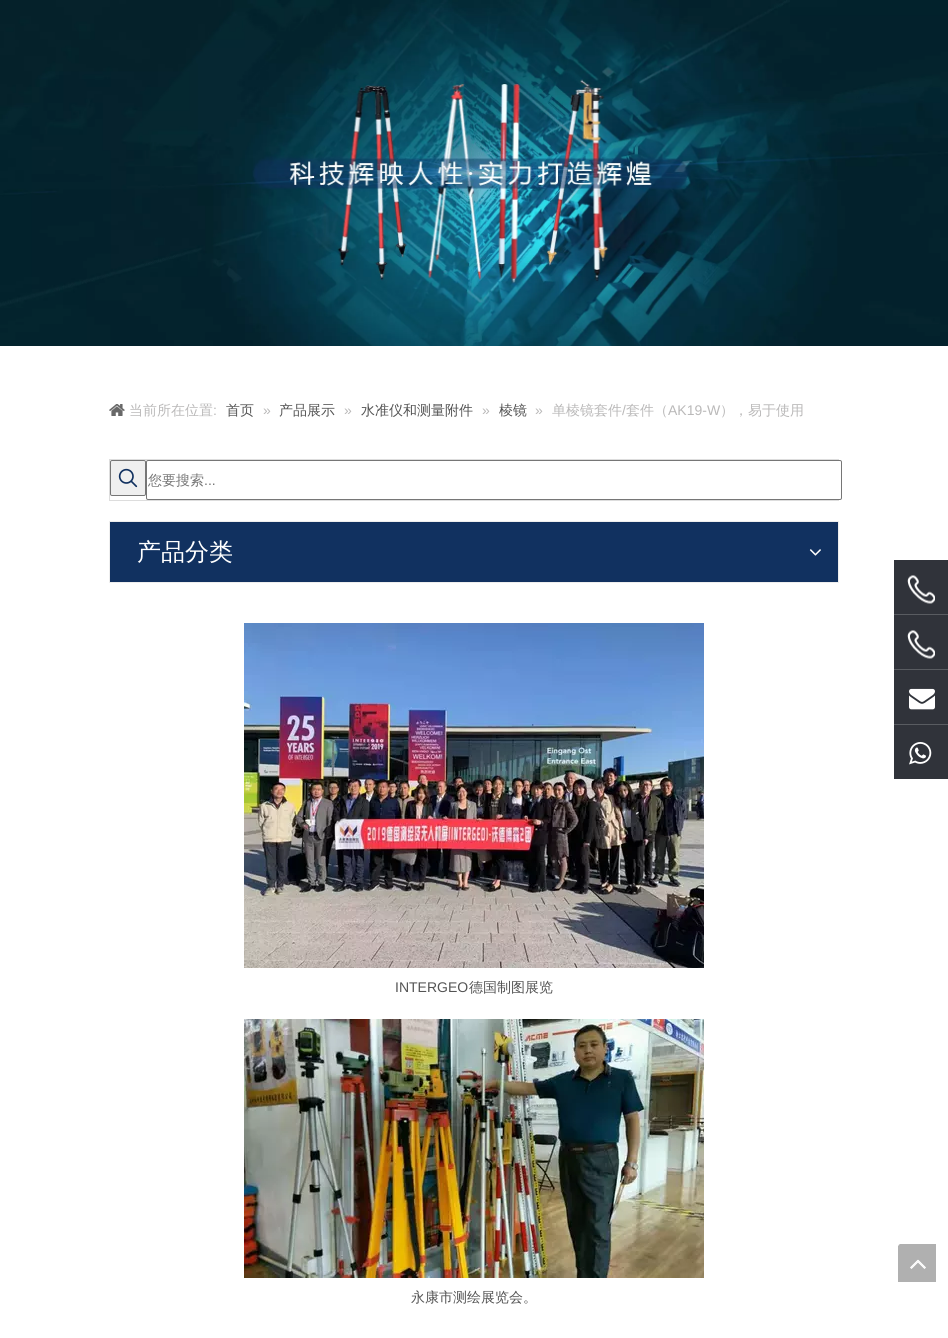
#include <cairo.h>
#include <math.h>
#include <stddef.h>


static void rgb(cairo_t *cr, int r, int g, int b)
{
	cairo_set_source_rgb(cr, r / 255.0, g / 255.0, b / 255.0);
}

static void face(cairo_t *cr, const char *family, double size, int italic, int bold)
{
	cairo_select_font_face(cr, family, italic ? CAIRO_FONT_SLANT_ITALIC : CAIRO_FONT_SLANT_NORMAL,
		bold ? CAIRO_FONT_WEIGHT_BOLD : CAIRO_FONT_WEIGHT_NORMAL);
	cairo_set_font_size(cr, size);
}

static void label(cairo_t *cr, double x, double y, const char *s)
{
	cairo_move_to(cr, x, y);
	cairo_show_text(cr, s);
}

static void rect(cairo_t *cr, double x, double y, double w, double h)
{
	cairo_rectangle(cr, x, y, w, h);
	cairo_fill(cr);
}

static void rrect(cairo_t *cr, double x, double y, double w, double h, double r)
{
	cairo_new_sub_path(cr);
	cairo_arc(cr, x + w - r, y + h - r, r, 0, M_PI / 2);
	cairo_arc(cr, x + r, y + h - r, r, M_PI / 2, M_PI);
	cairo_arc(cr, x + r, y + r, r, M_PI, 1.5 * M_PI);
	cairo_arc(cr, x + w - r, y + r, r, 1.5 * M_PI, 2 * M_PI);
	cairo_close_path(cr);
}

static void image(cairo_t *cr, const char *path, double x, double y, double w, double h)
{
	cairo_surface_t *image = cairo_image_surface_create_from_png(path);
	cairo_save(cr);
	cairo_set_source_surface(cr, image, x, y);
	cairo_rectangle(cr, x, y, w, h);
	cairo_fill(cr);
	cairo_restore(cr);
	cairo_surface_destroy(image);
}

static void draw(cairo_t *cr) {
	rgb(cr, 255, 255, 255);
	cairo_paint(cr);
	image(cr, "image0.png", 0, 0, 948, 346);
	image(cr, "image1.png", 109, 404, 16, 12);
	face(cr, "WenQuanYi Zen Hei Medium", 14, 0, 0);
	rgb(cr, 186, 185, 185);
	label(cr, 129, 415, "当前所在位置");
	face(cr, "Liberation Sans", 14, 0, 0);
	label(cr, 213, 415, ":");
	face(cr, "WenQuanYi Zen Hei Medium", 14, 0, 0);
	rgb(cr, 84, 84, 84);
	label(cr, 226, 415, "首页");
	face(cr, "Liberation Sans", 14, 0, 0);
	rgb(cr, 186, 185, 185);
	label(cr, 263, 415, "»");
	face(cr, "WenQuanYi Zen Hei Medium", 14, 0, 0);
	rgb(cr, 84, 84, 84);
	label(cr, 279, 415, "产品展示");
	face(cr, "Liberation Sans", 14, 0, 0);
	rgb(cr, 186, 185, 185);
	label(cr, 344, 415, "»");
	face(cr, "WenQuanYi Zen Hei Medium", 14, 0, 0);
	rgb(cr, 84, 84, 84);
	label(cr, 361, 415, "水准仪和测量附件");
	face(cr, "Liberation Sans", 14, 0, 0);
	rgb(cr, 186, 185, 185);
	label(cr, 482, 415, "»");
	face(cr, "WenQuanYi Zen Hei Medium", 14, 0, 0);
	rgb(cr, 84, 84, 84);
	label(cr, 499, 415, "棱镜");
	face(cr, "Liberation Sans", 14, 0, 0);
	rgb(cr, 186, 185, 185);
	label(cr, 535, 415, "»");
	face(cr, "WenQuanYi Zen Hei Medium", 14, 0, 0);
	label(cr, 552, 415, "单棱镜套件");
	face(cr, "Liberation Sans", 14, 0, 0);
	label(cr, 622, 415, "/");
	face(cr, "WenQuanYi Zen Hei Medium", 14, 0, 0);
	label(cr, 626, 415, "套件（");
	face(cr, "Liberation Sans", 14, 0, 0);
	label(cr, 668, 415, "AK19-W");
	face(cr, "WenQuanYi Zen Hei Medium", 14, 0, 0);
	label(cr, 720, 415, "），易于使用");
	cairo_rectangle(cr, 109.5, 459.5, 729, 41);
	rgb(cr, 221, 221, 221);
	cairo_set_line_width(cr, 1);
	cairo_stroke(cr);
	rgb(cr, 239, 239, 239);
	rrect(cr, 110.5, 460.5, 35, 35, 1.5);
	cairo_fill_preserve(cr);
	rgb(cr, 118, 118, 118);
	cairo_stroke(cr);
	image(cr, "image2.png", 118, 468, 20, 20);
	rgb(cr, 255, 255, 255);
	rrect(cr, 146.5, 460.5, 695, 39, 1.5);
	cairo_fill_preserve(cr);
	rgb(cr, 118, 118, 118);
	cairo_stroke(cr);
	rgb(cr, 117, 117, 117);
	label(cr, 148, 485, "您要搜索");
	face(cr, "Liberation Sans", 14, 0, 0);
	label(cr, 204, 485, "...");
	cairo_rectangle(cr, 109.5, 521.5, 729, 61);
	rgb(cr, 238, 238, 238);
	cairo_stroke(cr);
	rgb(cr, 17, 49, 96);
	rect(cr, 110, 522, 728, 60);
	face(cr, "WenQuanYi Zen Hei Medium", 24, 0, 0);
	rgb(cr, 255, 255, 255);
	label(cr, 137, 560, "产品分类");
	image(cr, "image3.png", 809, 549, 12, 7);
	image(cr, "image4.png", 244, 623, 460, 345);
	face(cr, "Liberation Sans", 14, 0, 0);
	rgb(cr, 84, 84, 84);
	label(cr, 395, 992, "INTERGEO");
	face(cr, "WenQuanYi Zen Hei Medium", 14, 0, 0);
	label(cr, 469, 992, "德国制图展览");
	image(cr, "image5.png", 244, 1019, 460, 259);
	label(cr, 411, 1302, "永康市测绘展览会。");
	rgb(cr, 48, 51, 58);
	rect(cr, 894, 560, 54, 219);
	rgb(cr, 89, 92, 97);
	rect(cr, 894, 614, 54, 1);
	image(cr, "image6.png", 907, 575, 28, 29);
	rect(cr, 894, 669, 54, 1);
	image(cr, "image6.png", 907, 630, 28, 29);
	rect(cr, 894, 724, 54, 1);
	image(cr, "image7.png", 909, 688, 26, 22);
	image(cr, "image8.png", 909, 742, 23, 23);
	image(cr, "image9.png", 898, 1244, 38, 38);
}

int main(void) {
	cairo_surface_t *surface = cairo_image_surface_create(CAIRO_FORMAT_RGB24, 948, 1338);
	cairo_t *cr = cairo_create(surface);
	cairo_font_options_t *options = cairo_font_options_create();
	cairo_font_options_set_hint_metrics(options, CAIRO_HINT_METRICS_OFF);
	cairo_font_options_set_hint_style(options, CAIRO_HINT_STYLE_NONE);
	cairo_set_font_options(cr, options);
	cairo_set_miter_limit(cr, 4);
	draw(cr);
	cairo_surface_write_to_png(surface, "render.png");
	cairo_font_options_destroy(options);
	cairo_destroy(cr);
	cairo_surface_destroy(surface);
	return 0;
}
